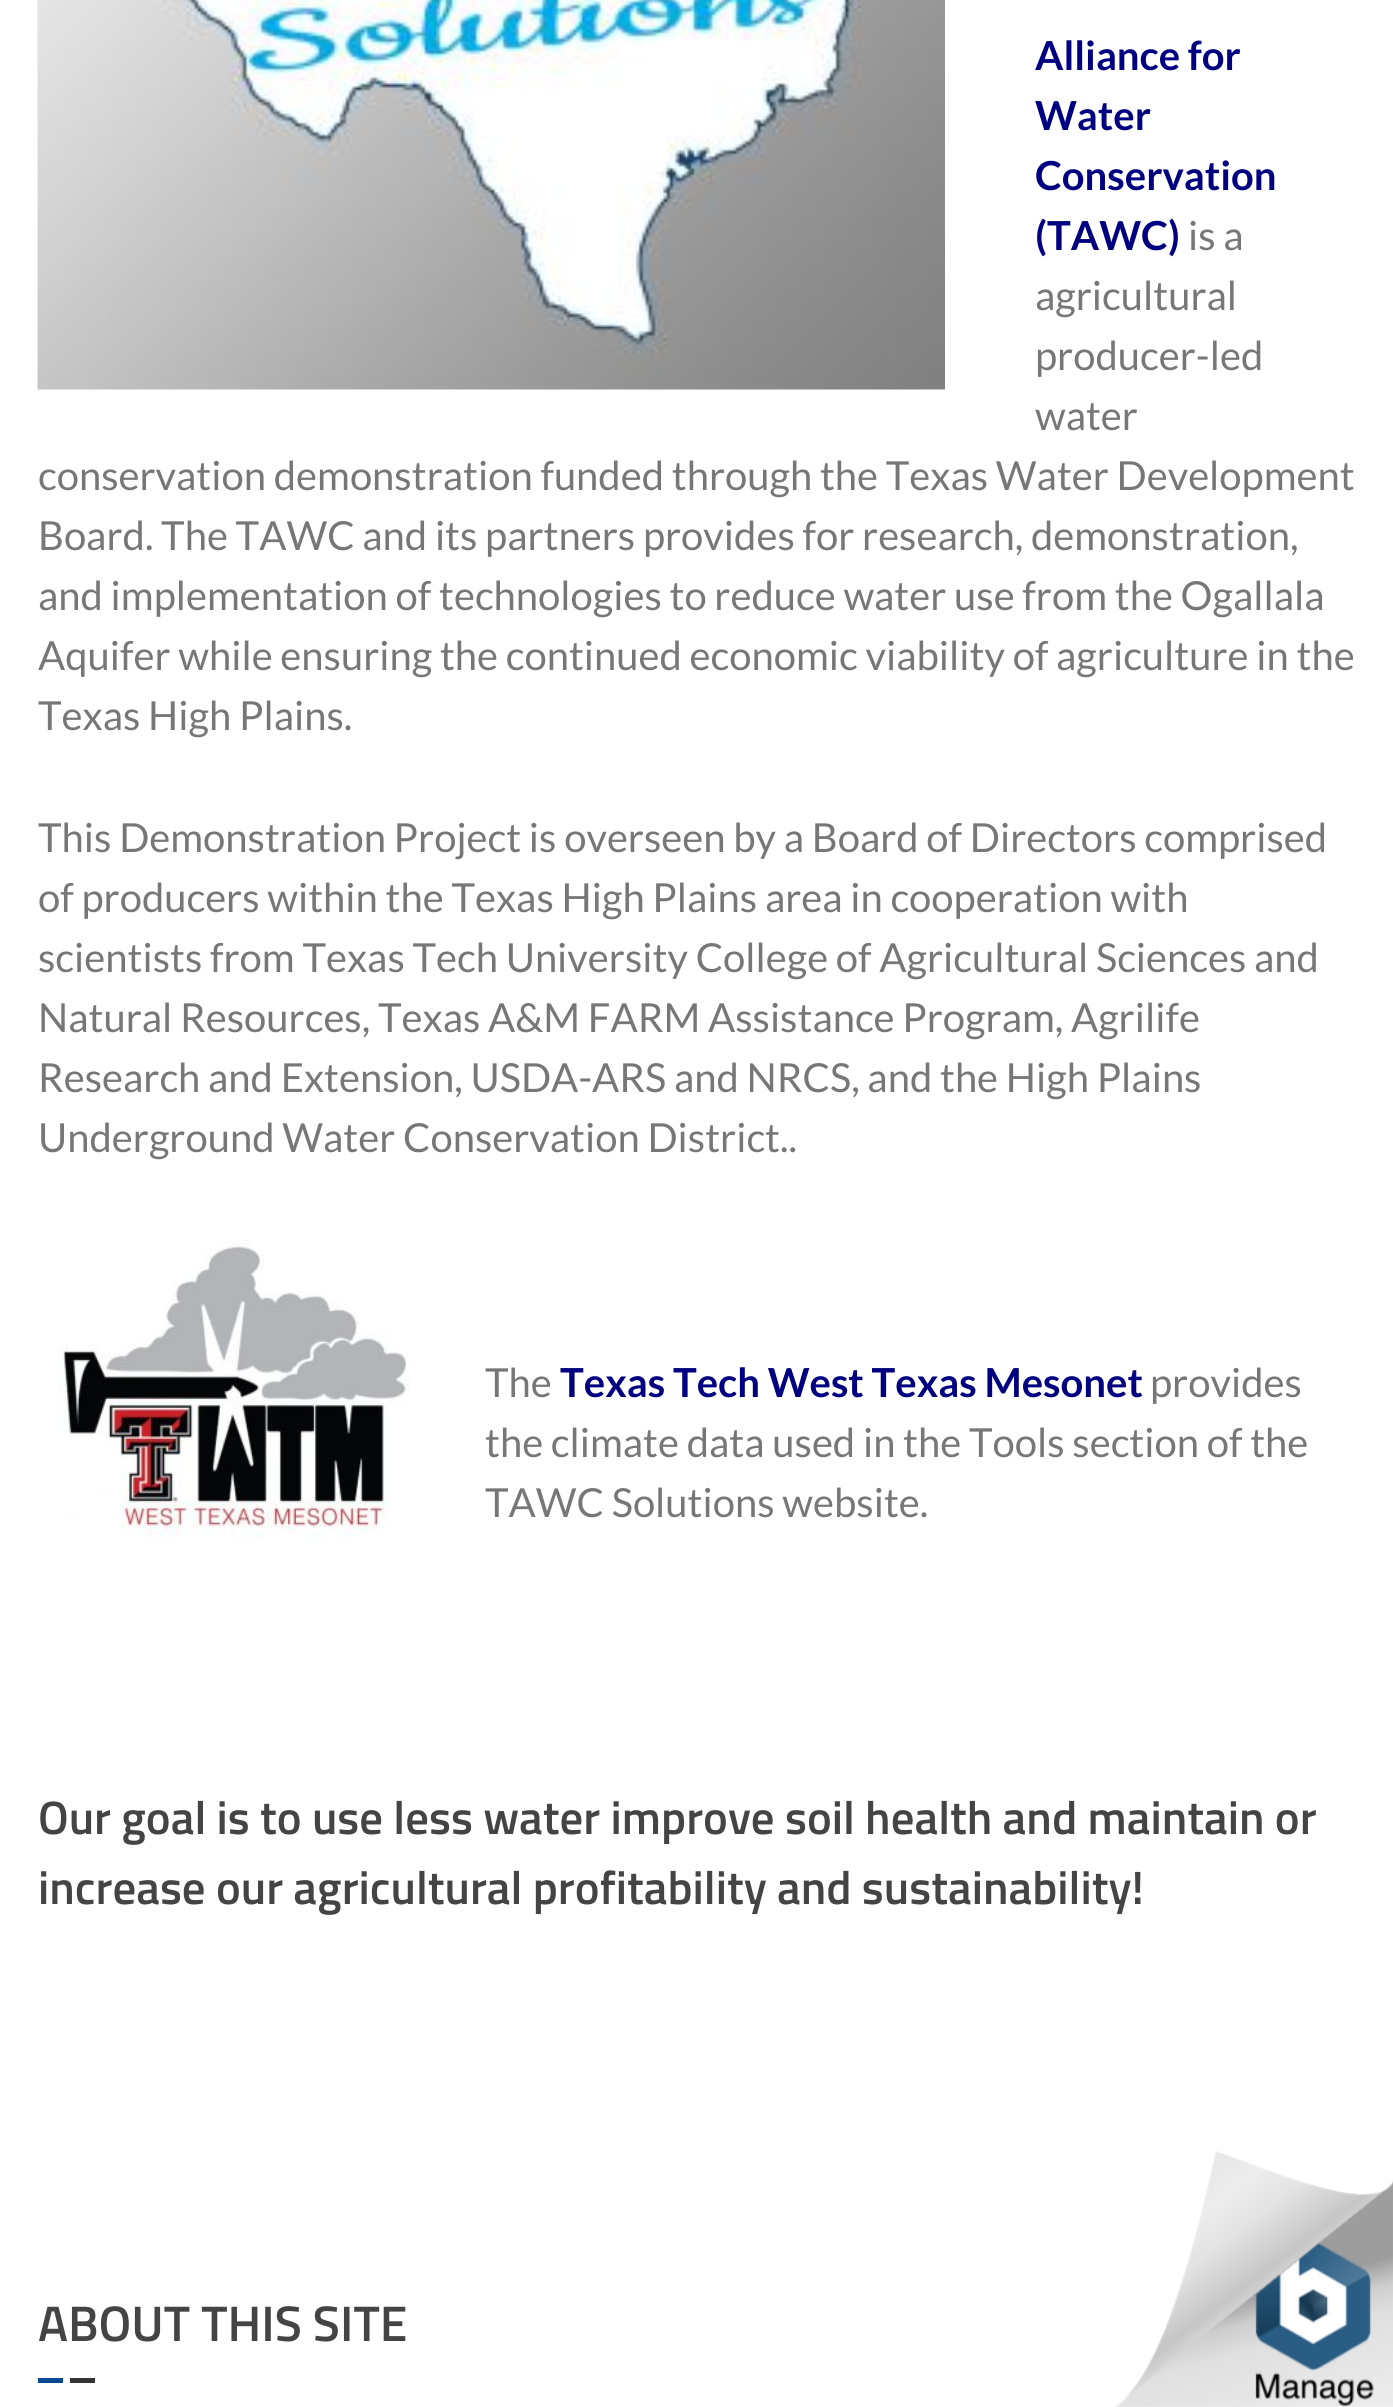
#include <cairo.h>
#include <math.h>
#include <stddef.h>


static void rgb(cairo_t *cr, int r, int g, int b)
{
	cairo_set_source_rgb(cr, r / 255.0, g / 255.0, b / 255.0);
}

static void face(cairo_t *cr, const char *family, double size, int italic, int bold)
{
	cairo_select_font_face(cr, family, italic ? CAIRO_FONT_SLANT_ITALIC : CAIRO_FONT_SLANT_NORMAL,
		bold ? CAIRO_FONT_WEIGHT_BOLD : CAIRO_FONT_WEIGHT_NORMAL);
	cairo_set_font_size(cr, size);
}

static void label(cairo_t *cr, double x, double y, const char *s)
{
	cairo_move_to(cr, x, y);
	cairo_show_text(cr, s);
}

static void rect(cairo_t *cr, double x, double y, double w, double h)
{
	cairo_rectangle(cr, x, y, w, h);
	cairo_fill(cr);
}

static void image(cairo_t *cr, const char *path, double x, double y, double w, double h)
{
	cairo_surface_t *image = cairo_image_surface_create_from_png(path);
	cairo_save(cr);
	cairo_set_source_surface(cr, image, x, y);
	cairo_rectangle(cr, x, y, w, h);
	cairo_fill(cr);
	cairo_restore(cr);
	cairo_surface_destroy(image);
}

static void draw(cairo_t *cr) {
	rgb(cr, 255, 255, 255);
	cairo_paint(cr);
	image(cr, "image0.png", 37, 0, 908, 390);
	face(cr, "Lato", 40, 0, 1);
	rgb(cr, 0, 0, 128);
	label(cr, 1035, 70, "Alliance for");
	label(cr, 1035, 130, "Water");
	label(cr, 1035, 190, "Conservation");
	label(cr, 1035, 250, "(TAWC)");
	face(cr, "Lato", 40, 0, 0);
	rgb(cr, 119, 119, 119);
	label(cr, 1188, 250, "is a");
	label(cr, 1035, 310, "agricultural");
	label(cr, 1035, 370, "producer-led");
	label(cr, 1035, 430, "water");
	label(cr, 38, 490, "conservation demonstration funded through the Texas Water Development");
	label(cr, 38, 550, "Board. The TAWC and its partners provides for research, demonstration,");
	label(cr, 38, 610, "and implementation of technologies to reduce water use from the Ogallala");
	label(cr, 38, 670, "Aquifer while ensuring the continued economic viability of agriculture in the");
	label(cr, 38, 730, "Texas High Plains.");
	label(cr, 38, 852, "This Demonstration Project is overseen by a Board of Directors comprised");
	label(cr, 38, 912, "of producers within the Texas High Plains area in cooperation with");
	label(cr, 38, 972, "scientists from Texas Tech University College of Agricultural Sciences and");
	label(cr, 38, 1032, "Natural Resources, Texas A&M FARM Assistance Program, Agrilife");
	label(cr, 38, 1092, "Research and Extension, USDA-ARS and NRCS, and the High Plains");
	label(cr, 38, 1152, "Underground Water Conservation District..");
	image(cr, "image1.png", 58, 1240, 352, 297);
	label(cr, 485, 1397, "The");
	face(cr, "Lato", 40, 0, 1);
	rgb(cr, 0, 0, 128);
	label(cr, 560, 1397, "Texas Tech West Texas Mesonet");
	face(cr, "Lato", 40, 0, 0);
	rgb(cr, 119, 119, 119);
	label(cr, 1150, 1397, "provides");
	label(cr, 485, 1457, "the climate data used in the Tools section of the");
	label(cr, 485, 1517, "TAWC Solutions website.");
	face(cr, "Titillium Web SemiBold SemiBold", 46.8, 0, 0);
	rgb(cr, 68, 68, 68);
	label(cr, 38, 1834, "Our goal is to use less water improve soil health and maintain or");
	label(cr, 38, 1904, "increase our agricultural profitability and sustainability!");
	face(cr, "Titillium Web SemiBold SemiBold", 50, 0, 0);
	label(cr, 38, 2341, "ABOUT THIS SITE");
	rgb(cr, 2, 74, 145);
	rect(cr, 38, 2378, 25, 5);
	rgb(cr, 51, 51, 51);
	rect(cr, 70, 2378, 25, 5);
	image(cr, "image2.png", 1115, 2151, 278, 256);
}

int main(void) {
	cairo_surface_t *surface = cairo_image_surface_create(CAIRO_FORMAT_RGB24, 1393, 2407);
	cairo_t *cr = cairo_create(surface);
	cairo_font_options_t *options = cairo_font_options_create();
	cairo_font_options_set_hint_metrics(options, CAIRO_HINT_METRICS_OFF);
	cairo_font_options_set_hint_style(options, CAIRO_HINT_STYLE_NONE);
	cairo_set_font_options(cr, options);
	cairo_set_miter_limit(cr, 4);
	draw(cr);
	cairo_surface_write_to_png(surface, "render.png");
	cairo_font_options_destroy(options);
	cairo_destroy(cr);
	cairo_surface_destroy(surface);
	return 0;
}
